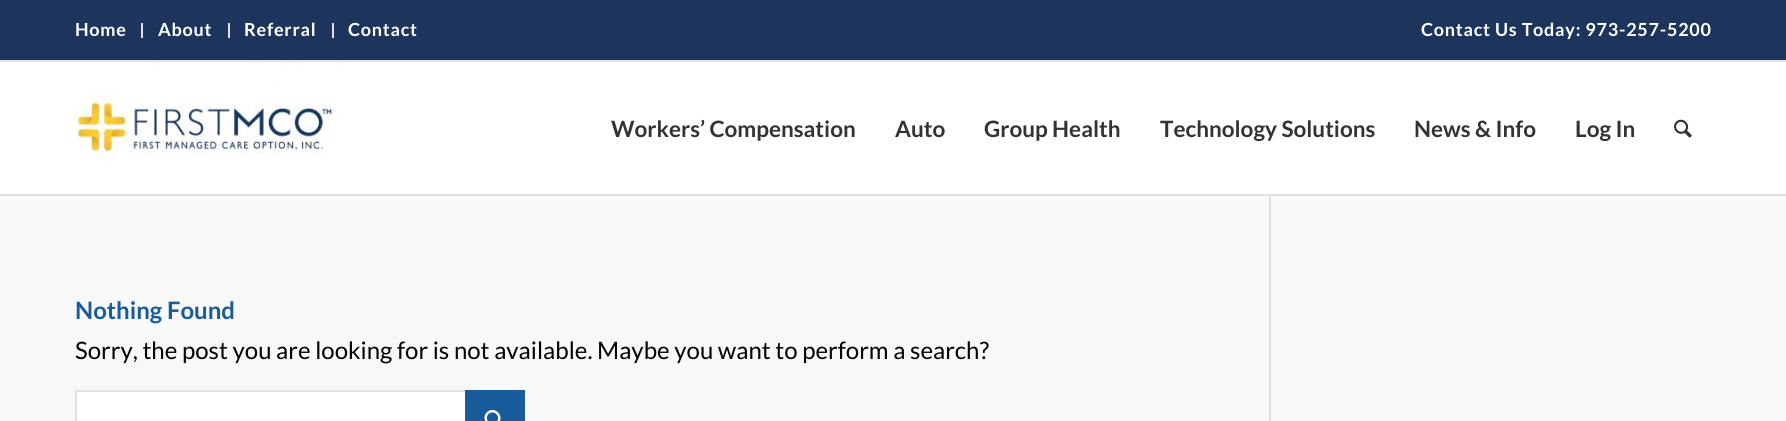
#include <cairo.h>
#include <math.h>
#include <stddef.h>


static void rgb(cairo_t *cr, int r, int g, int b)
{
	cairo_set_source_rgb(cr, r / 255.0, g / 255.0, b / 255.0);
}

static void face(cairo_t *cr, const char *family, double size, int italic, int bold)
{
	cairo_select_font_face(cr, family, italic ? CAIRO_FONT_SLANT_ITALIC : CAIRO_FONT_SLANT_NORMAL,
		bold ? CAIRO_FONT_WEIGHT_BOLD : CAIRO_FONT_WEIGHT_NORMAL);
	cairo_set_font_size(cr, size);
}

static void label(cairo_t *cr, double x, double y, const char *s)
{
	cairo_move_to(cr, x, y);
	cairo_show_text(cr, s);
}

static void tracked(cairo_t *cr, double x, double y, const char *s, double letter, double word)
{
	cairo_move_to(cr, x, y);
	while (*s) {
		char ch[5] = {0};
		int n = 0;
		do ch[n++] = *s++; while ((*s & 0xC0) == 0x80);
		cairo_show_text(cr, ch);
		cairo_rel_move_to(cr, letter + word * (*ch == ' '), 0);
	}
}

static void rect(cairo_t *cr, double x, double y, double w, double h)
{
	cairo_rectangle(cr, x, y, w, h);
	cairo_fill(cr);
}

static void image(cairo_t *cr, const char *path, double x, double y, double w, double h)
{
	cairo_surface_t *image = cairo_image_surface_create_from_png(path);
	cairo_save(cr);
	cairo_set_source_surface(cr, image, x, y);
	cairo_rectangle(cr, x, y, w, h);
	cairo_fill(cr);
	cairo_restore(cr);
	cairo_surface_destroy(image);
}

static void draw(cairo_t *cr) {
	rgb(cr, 248, 248, 248);
	cairo_paint(cr);
	rgb(cr, 29, 53, 93);
	rect(cr, 0, 0, 1786, 60);
	rgb(cr, 225, 225, 225);
	rect(cr, 0, 60, 1786, 2);
	rect(cr, 141, 23, 2, 15);
	face(cr, "Lato", 18, 0, 1);
	rgb(cr, 255, 255, 255);
	tracked(cr, 75, 36, "Home", 0.75, 0);
	rgb(cr, 225, 225, 225);
	rect(cr, 228, 23, 2, 15);
	rgb(cr, 255, 255, 255);
	tracked(cr, 158, 36, "About", 0.75, 0);
	rgb(cr, 225, 225, 225);
	rect(cr, 332, 23, 2, 15);
	rgb(cr, 255, 255, 255);
	tracked(cr, 244, 36, "Referral", 0.75, 0);
	tracked(cr, 348, 36, "Contact", 0.75, 0);
	tracked(cr, 1421, 36, "Contact Us Today: 973-257-5200", 0.75, 0);
	rect(cr, 0, 62, 1786, 132);
	rgb(cr, 225, 225, 225);
	rect(cr, 1269, 195, 2, 226);
	rect(cr, 0, 194, 1786, 2);
	image(cr, "image0.png", 75, 62, 267, 100);
	face(cr, "Lato", 22.5, 0, 1);
	rgb(cr, 51, 51, 51);
	label(cr, 611, 137, "Workers’ Compensation");
	label(cr, 895, 137, "Auto");
	label(cr, 984, 137, "Group Health");
	label(cr, 1160, 137, "Technology Solutions");
	label(cr, 1414, 137, "News & Info");
	label(cr, 1575, 137, "Log In");
	image(cr, "image1.png", 1674, 119, 18, 19);
	face(cr, "Lato", 24, 0, 1);
	rgb(cr, 25, 92, 155);
	label(cr, 75, 319, "Nothing Found");
	face(cr, "Lato", 24, 0, 0);
	rgb(cr, 0, 0, 0);
	label(cr, 75, 359, "Sorry, the post you are looking for is not available. Maybe you want to perform a search?");
	rgb(cr, 255, 255, 255);
	rect(cr, 77, 392, 388, 29);
	cairo_rectangle(cr, 76, 391, 448, 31);
	rgb(cr, 225, 225, 225);
	cairo_stroke(cr);
	rgb(cr, 25, 92, 155);
	rect(cr, 465, 390, 60, 31);
	image(cr, "image2.png", 484, 410, 17, 11);
}

int main(void) {
	cairo_surface_t *surface = cairo_image_surface_create(CAIRO_FORMAT_RGB24, 1786, 421);
	cairo_t *cr = cairo_create(surface);
	cairo_font_options_t *options = cairo_font_options_create();
	cairo_font_options_set_hint_metrics(options, CAIRO_HINT_METRICS_OFF);
	cairo_font_options_set_hint_style(options, CAIRO_HINT_STYLE_NONE);
	cairo_set_font_options(cr, options);
	cairo_set_miter_limit(cr, 4);
	draw(cr);
	cairo_surface_write_to_png(surface, "render.png");
	cairo_font_options_destroy(options);
	cairo_destroy(cr);
	cairo_surface_destroy(surface);
	return 0;
}
